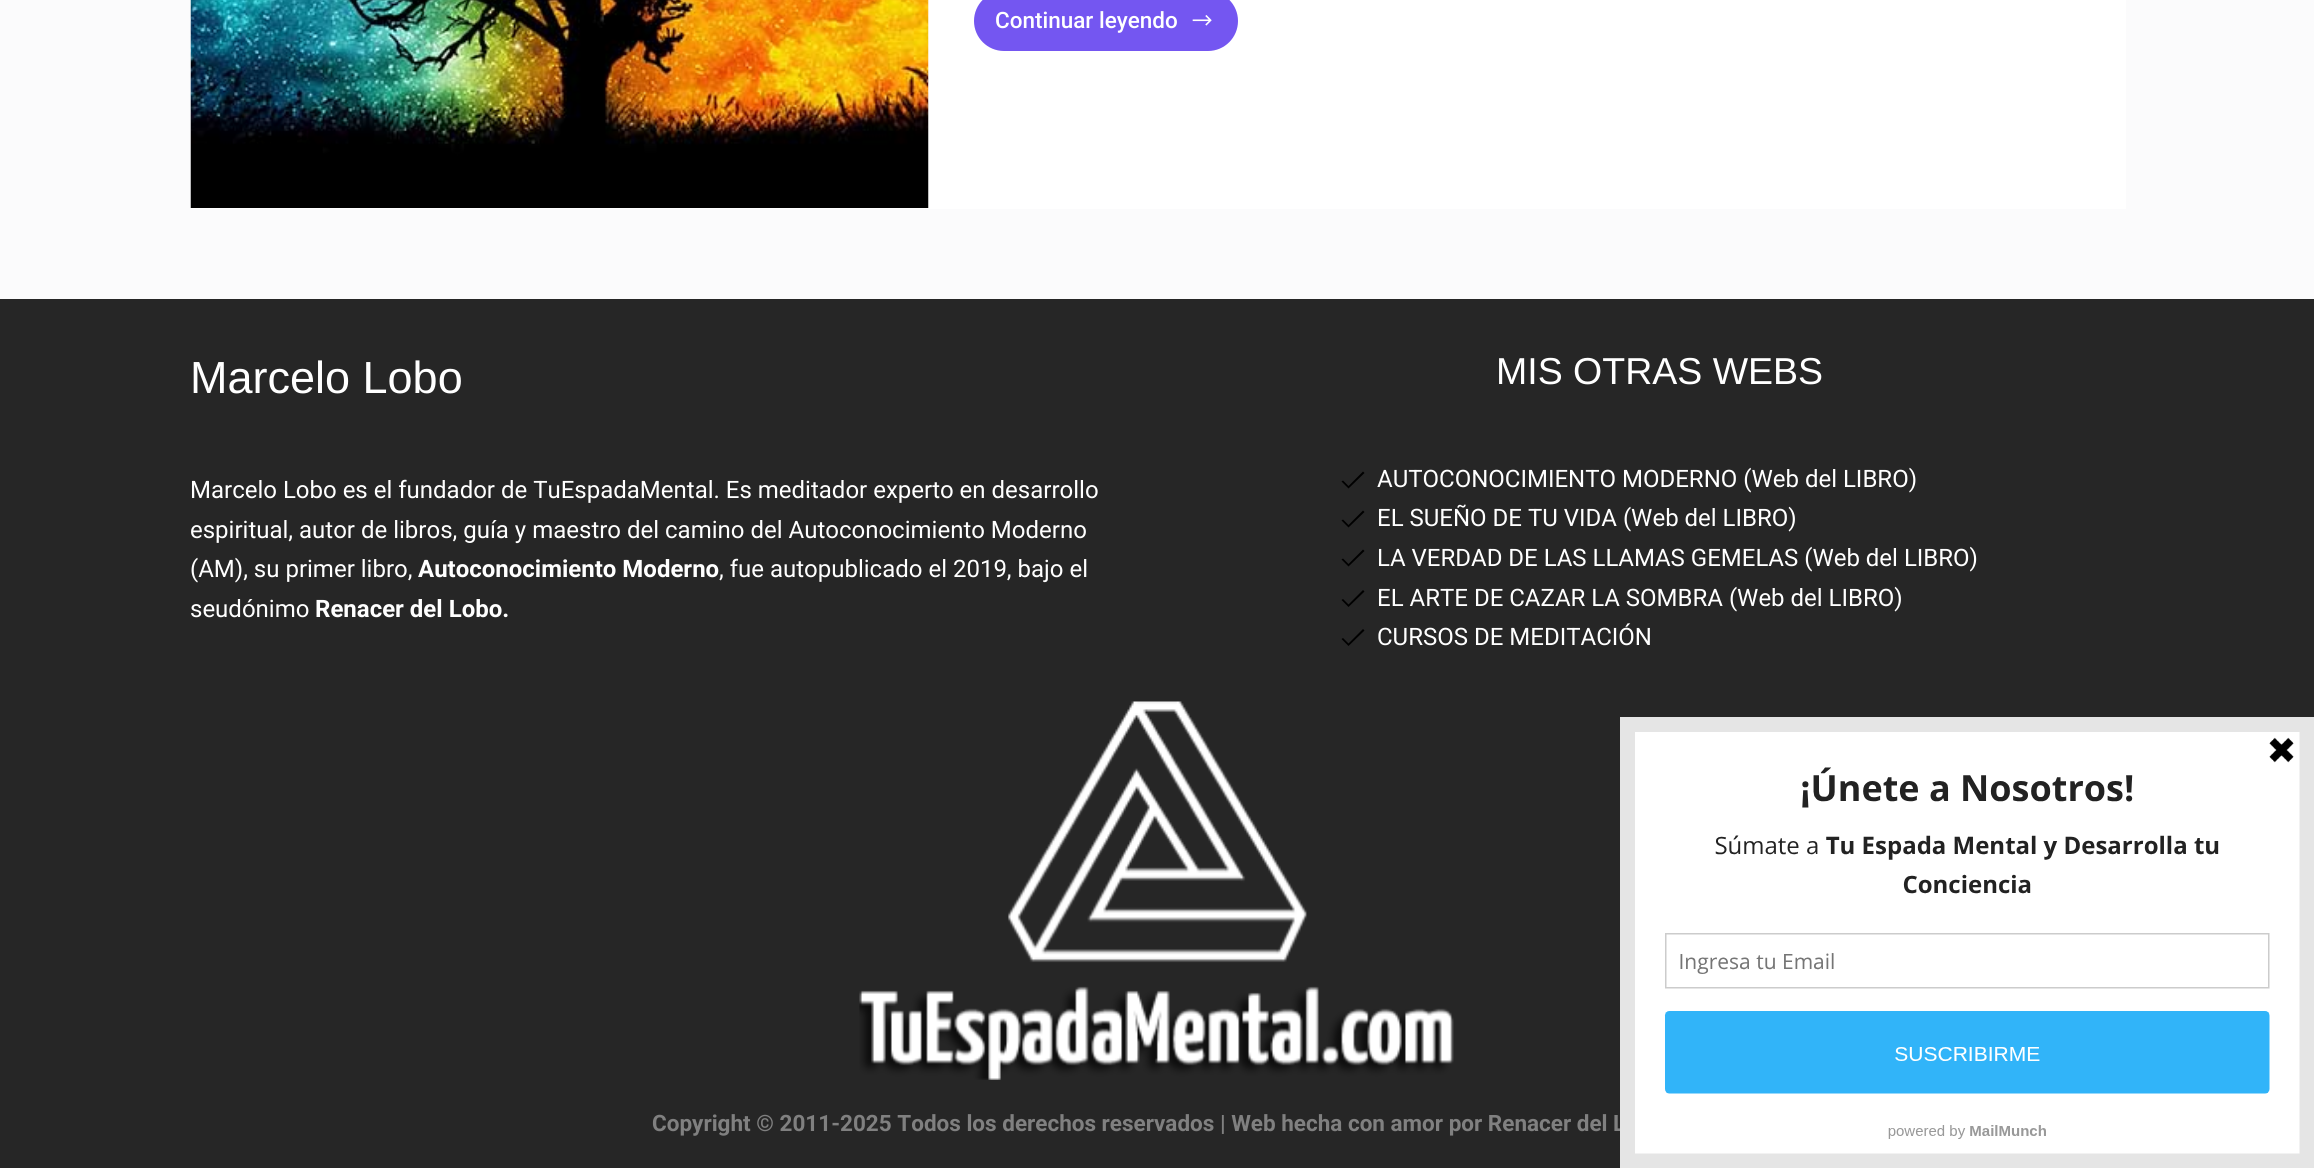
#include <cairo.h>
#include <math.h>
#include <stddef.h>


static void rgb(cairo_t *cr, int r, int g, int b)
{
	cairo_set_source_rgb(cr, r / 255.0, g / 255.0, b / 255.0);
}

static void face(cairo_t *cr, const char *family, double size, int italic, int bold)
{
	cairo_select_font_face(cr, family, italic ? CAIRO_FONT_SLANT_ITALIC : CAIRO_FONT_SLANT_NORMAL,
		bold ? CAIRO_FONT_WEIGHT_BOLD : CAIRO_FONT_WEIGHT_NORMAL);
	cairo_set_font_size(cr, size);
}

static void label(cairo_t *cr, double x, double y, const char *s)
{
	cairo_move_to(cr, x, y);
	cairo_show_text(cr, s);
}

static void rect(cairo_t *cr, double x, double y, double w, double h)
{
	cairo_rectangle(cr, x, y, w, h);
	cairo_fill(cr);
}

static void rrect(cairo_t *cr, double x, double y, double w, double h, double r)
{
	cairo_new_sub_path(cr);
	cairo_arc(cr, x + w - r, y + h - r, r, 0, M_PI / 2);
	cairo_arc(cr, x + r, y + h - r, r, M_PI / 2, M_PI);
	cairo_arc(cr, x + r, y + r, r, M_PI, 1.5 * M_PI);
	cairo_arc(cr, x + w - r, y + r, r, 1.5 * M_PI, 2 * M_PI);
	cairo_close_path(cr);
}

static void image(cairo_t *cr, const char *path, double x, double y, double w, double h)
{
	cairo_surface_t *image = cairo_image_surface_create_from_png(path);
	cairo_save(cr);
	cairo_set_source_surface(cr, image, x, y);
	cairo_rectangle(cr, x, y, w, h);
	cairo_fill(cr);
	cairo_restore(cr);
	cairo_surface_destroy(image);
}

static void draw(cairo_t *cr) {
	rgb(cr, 251, 251, 252);
	cairo_paint(cr);
	rgb(cr, 255, 255, 255);
	rect(cr, 191, 0, 1935, 209);
	image(cr, "image0.png", 190, 0, 739, 208);
	rgb(cr, 116, 86, 241);
	rrect(cr, 974, -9, 264, 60, 30);
	cairo_fill(cr);
	face(cr, "Roboto Medium", 22.5, 0, 0);
	rgb(cr, 255, 255, 255);
	label(cr, 995, 28, "Continuar leyendo");
	image(cr, "image1.png", 1192, 15, 20, 11);
	rgb(cr, 38, 38, 38);
	rect(cr, 0, 299, 2314, 869);
	face(cr, "Liberation Sans", 45, 0, 0);
	rgb(cr, 255, 255, 255);
	label(cr, 190, 393, "Marcelo Lobo");
	face(cr, "Roboto", 24, 0, 0);
	label(cr, 190, 498, "Marcelo Lobo es el fundador de TuEspadaMental. Es meditador experto en desarrollo");
	label(cr, 190, 538, "espiritual, autor de libros, guía y maestro del camino del Autoconocimiento Moderno");
	label(cr, 190, 577, "(AM), su primer libro,");
	face(cr, "Roboto", 24, 0, 1);
	label(cr, 418, 577, "Autoconocimiento Moderno");
	face(cr, "Roboto", 24, 0, 0);
	label(cr, 719, 577, ", fue autopublicado el 2019, bajo el");
	label(cr, 190, 617, "seudónimo");
	face(cr, "Roboto", 24, 0, 1);
	label(cr, 315, 617, "Renacer del Lobo.");
	face(cr, "Liberation Sans", 37.5, 0, 0);
	label(cr, 1496, 384, "MIS OTRAS WEBS");
	rgb(cr, 0, 0, 0);
	cairo_new_path(cr);
	cairo_move_to(cr, 1363, 471.5);
	cairo_line_to(cr, 1348.5, 486);
	cairo_line_to(cr, 1343, 480.5);
	cairo_line_to(cr, 1341.5, 481.5);
	cairo_line_to(cr, 1348.5, 488.5);
	cairo_line_to(cr, 1364.5, 473);
	cairo_close_path(cr);
	cairo_fill(cr);
	face(cr, "Roboto", 24, 0, 0);
	rgb(cr, 255, 255, 255);
	label(cr, 1377, 487, "AUTOCONOCIMIENTO MODERNO (Web del LIBRO)");
	rgb(cr, 0, 0, 0);
	cairo_new_path(cr);
	cairo_move_to(cr, 1363, 510.5);
	cairo_line_to(cr, 1348.5, 525);
	cairo_line_to(cr, 1343, 519.5);
	cairo_line_to(cr, 1341.5, 520.5);
	cairo_line_to(cr, 1348.5, 527.5);
	cairo_line_to(cr, 1364.5, 512);
	cairo_close_path(cr);
	cairo_fill(cr);
	rgb(cr, 255, 255, 255);
	label(cr, 1377, 526, "EL SUEÑO DE TU VIDA (Web del LIBRO)");
	rgb(cr, 0, 0, 0);
	cairo_new_path(cr);
	cairo_move_to(cr, 1363, 549.5);
	cairo_line_to(cr, 1348.5, 564);
	cairo_line_to(cr, 1343, 558.5);
	cairo_line_to(cr, 1341.5, 559.5);
	cairo_line_to(cr, 1348.5, 566.5);
	cairo_line_to(cr, 1364.5, 551);
	cairo_close_path(cr);
	cairo_fill(cr);
	rgb(cr, 255, 255, 255);
	label(cr, 1377, 566, "LA VERDAD DE LAS LLAMAS GEMELAS (Web del LIBRO)");
	rgb(cr, 0, 0, 0);
	cairo_new_path(cr);
	cairo_move_to(cr, 1363, 590);
	cairo_line_to(cr, 1348.5, 604.5);
	cairo_line_to(cr, 1343, 599);
	cairo_line_to(cr, 1341.5, 600);
	cairo_line_to(cr, 1348.5, 607);
	cairo_line_to(cr, 1364.5, 591.5);
	cairo_close_path(cr);
	cairo_fill(cr);
	rgb(cr, 255, 255, 255);
	label(cr, 1377, 606, "EL ARTE DE CAZAR LA SOMBRA (Web del LIBRO)");
	rgb(cr, 0, 0, 0);
	cairo_new_path(cr);
	cairo_move_to(cr, 1363, 629);
	cairo_line_to(cr, 1348.5, 643.5);
	cairo_line_to(cr, 1343, 638);
	cairo_line_to(cr, 1341.5, 639);
	cairo_line_to(cr, 1348.5, 646);
	cairo_line_to(cr, 1364.5, 630.5);
	cairo_close_path(cr);
	cairo_fill(cr);
	rgb(cr, 255, 255, 255);
	label(cr, 1377, 645, "CURSOS DE MEDITACIÓN");
	image(cr, "image2.png", 859, 701, 595, 379);
	face(cr, "Roboto", 22.5, 0, 1);
	rgb(cr, 128, 128, 128);
	label(cr, 652, 1131, "Copyright © 2011-2025 Todos los derechos reservados | Web hecha con amor por Renacer del L");
	image(cr, "image3.png", 1620, 717, 694, 451);
}

int main(void) {
	cairo_surface_t *surface = cairo_image_surface_create(CAIRO_FORMAT_RGB24, 2314, 1168);
	cairo_t *cr = cairo_create(surface);
	cairo_font_options_t *options = cairo_font_options_create();
	cairo_font_options_set_hint_metrics(options, CAIRO_HINT_METRICS_OFF);
	cairo_font_options_set_hint_style(options, CAIRO_HINT_STYLE_NONE);
	cairo_set_font_options(cr, options);
	cairo_set_miter_limit(cr, 4);
	draw(cr);
	cairo_surface_write_to_png(surface, "render.png");
	cairo_font_options_destroy(options);
	cairo_destroy(cr);
	cairo_surface_destroy(surface);
	return 0;
}
